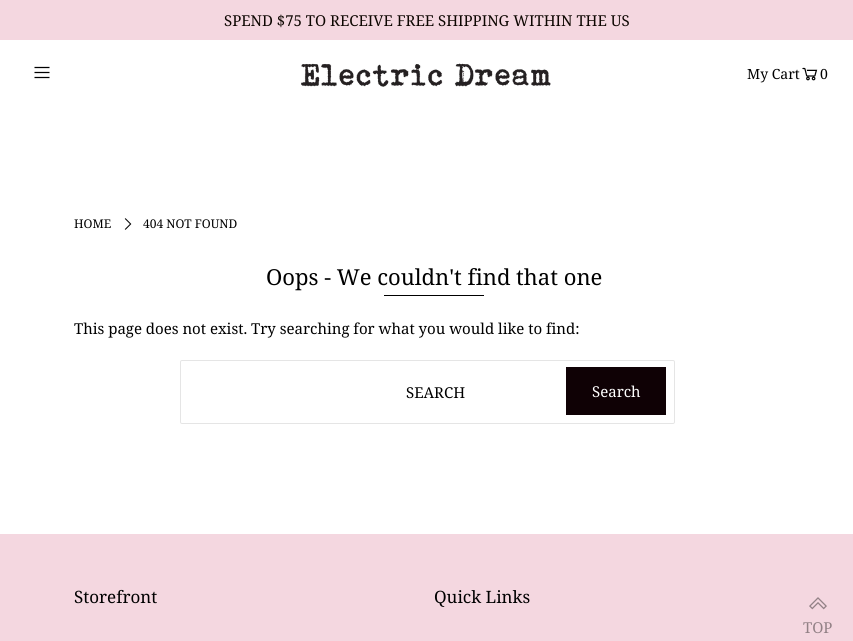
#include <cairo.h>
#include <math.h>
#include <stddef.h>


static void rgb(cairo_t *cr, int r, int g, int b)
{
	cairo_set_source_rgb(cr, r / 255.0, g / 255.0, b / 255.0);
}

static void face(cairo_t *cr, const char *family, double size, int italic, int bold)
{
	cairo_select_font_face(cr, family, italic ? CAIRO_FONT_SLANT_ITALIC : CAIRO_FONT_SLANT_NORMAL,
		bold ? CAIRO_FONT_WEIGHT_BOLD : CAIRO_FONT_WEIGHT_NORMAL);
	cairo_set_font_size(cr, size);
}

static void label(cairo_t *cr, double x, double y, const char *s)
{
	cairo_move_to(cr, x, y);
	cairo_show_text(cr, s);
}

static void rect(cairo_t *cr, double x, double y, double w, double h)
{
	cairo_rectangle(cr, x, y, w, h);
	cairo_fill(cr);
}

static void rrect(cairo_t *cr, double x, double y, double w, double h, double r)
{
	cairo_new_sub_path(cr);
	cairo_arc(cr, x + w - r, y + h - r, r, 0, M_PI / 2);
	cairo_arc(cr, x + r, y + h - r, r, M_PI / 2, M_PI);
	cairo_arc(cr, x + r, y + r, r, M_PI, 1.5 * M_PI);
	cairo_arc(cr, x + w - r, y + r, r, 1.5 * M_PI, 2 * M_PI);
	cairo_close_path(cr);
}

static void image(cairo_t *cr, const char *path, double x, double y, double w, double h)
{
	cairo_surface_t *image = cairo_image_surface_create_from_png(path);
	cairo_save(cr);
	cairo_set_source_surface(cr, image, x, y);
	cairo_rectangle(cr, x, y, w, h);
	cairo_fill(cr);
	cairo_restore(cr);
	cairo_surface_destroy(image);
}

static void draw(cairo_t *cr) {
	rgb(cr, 255, 255, 255);
	cairo_paint(cr);
	rgb(cr, 244, 215, 224);
	rect(cr, 0, 0, 853, 40);
	face(cr, "Noto Serif", 15, 0, 0);
	rgb(cr, 13, 6, 1);
	label(cr, 224, 26, "SPEND $75 TO RECEIVE FREE SHIPPING WITHIN THE US");
	image(cr, "image0.png", 34, 66, 16, 13);
	image(cr, "image1.png", 301, 63, 250, 24);
	face(cr, "Noto Serif", 14, 0, 0);
	rgb(cr, 0, 0, 0);
	label(cr, 747, 79, "My Cart");
	image(cr, "image2.png", 802, 67, 16, 14);
	label(cr, 820, 79, "0");
	face(cr, "Noto Serif", 12, 0, 0);
	label(cr, 74, 228, "HOME");
	image(cr, "image3.png", 124, 218, 8, 12);
	label(cr, 143, 228, "404 NOT FOUND");
	face(cr, "Noto Serif", 22, 0, 0);
	label(cr, 266, 285, "Oops - We couldn't find that one");
	rect(cr, 384, 295, 100, 1);
	face(cr, "Noto Serif", 15, 0, 0);
	label(cr, 74, 334, "This page does not exist. Try searching for what you would like to find:");
	rrect(cr, 180.5, 360.5, 494, 63, 1.5);
	rgb(cr, 229, 229, 229);
	cairo_set_line_width(cr, 1);
	cairo_stroke(cr);
	rgb(cr, 0, 0, 0);
	label(cr, 406, 398, "SEARCH");
	rgb(cr, 15, 1, 5);
	rect(cr, 566, 367, 100, 48);
	rgb(cr, 255, 255, 255);
	label(cr, 592, 397, "Search");
	rgb(cr, 244, 215, 224);
	rect(cr, 0, 534, 853, 107);
	face(cr, "Noto Serif", 17, 0, 0);
	rgb(cr, 0, 0, 0);
	label(cr, 74, 603, "Storefront");
	label(cr, 434, 603, "Quick Links");
	image(cr, "image4.png", 809, 597, 18, 13);
	face(cr, "Noto Serif", 15, 0, 0);
	rgb(cr, 146, 129, 134);
	label(cr, 803, 633, "TOP");
}

int main(void) {
	cairo_surface_t *surface = cairo_image_surface_create(CAIRO_FORMAT_RGB24, 853, 641);
	cairo_t *cr = cairo_create(surface);
	cairo_font_options_t *options = cairo_font_options_create();
	cairo_font_options_set_hint_metrics(options, CAIRO_HINT_METRICS_OFF);
	cairo_font_options_set_hint_style(options, CAIRO_HINT_STYLE_NONE);
	cairo_set_font_options(cr, options);
	cairo_set_miter_limit(cr, 4);
	draw(cr);
	cairo_surface_write_to_png(surface, "render.png");
	cairo_font_options_destroy(options);
	cairo_destroy(cr);
	cairo_surface_destroy(surface);
	return 0;
}
